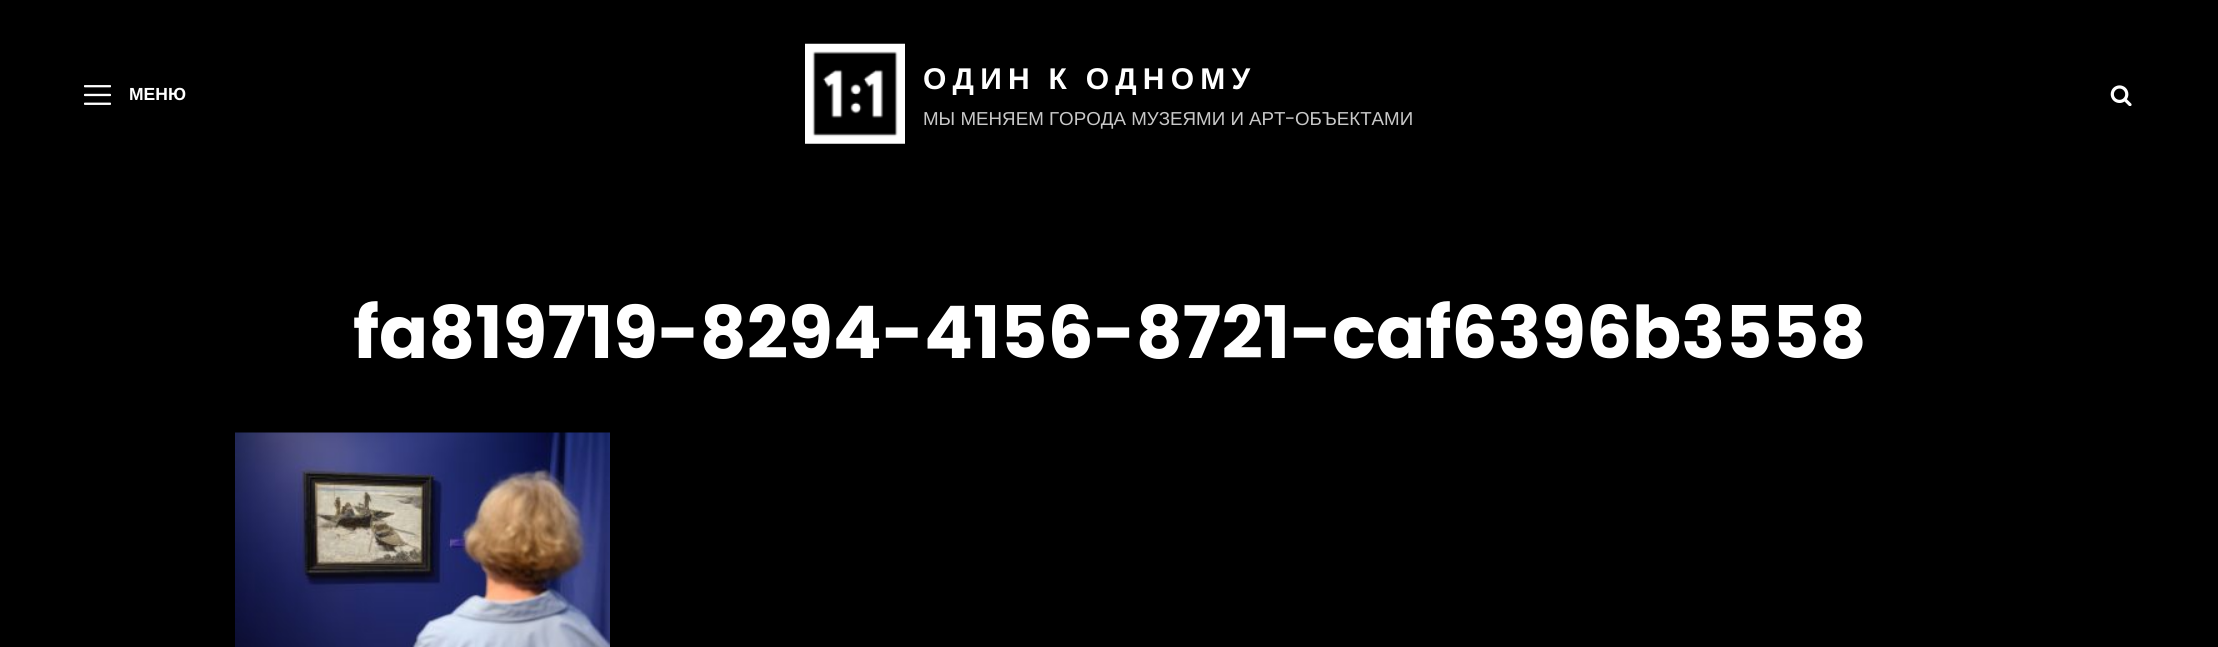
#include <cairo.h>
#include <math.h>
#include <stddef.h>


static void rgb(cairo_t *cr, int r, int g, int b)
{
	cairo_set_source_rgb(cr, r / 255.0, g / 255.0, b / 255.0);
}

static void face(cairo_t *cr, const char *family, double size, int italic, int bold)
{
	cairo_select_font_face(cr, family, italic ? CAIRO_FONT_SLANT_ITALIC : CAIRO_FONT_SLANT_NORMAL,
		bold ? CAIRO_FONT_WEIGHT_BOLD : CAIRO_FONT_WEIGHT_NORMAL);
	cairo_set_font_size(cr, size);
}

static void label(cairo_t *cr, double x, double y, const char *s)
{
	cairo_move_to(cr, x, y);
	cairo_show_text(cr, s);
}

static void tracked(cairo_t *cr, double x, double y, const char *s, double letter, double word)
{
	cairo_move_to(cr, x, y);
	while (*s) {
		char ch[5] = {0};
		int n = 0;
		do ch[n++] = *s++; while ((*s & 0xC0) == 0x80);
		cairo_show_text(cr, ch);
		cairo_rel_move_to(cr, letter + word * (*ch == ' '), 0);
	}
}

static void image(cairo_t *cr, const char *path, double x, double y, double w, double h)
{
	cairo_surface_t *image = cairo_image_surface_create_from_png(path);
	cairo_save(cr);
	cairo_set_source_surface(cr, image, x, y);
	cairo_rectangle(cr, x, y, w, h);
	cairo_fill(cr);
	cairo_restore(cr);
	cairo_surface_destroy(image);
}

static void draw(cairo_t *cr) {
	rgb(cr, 0, 0, 0);
	cairo_paint(cr);
	image(cr, "image0.png", 84, 85, 27, 20);
	face(cr, "Liberation Sans", 17.5, 0, 1);
	rgb(cr, 255, 255, 255);
	label(cr, 129, 100, "МЕНЮ");
	image(cr, "image1.png", 805, 43, 100, 101);
	face(cr, "Liberation Sans", 30, 0, 1);
	tracked(cr, 923, 89, "ОДИН К ОДНОМУ", 6.25, -2);
	face(cr, "Liberation Sans", 18.75, 0, 0);
	rgb(cr, 201, 201, 201);
	label(cr, 923, 125, "МЫ МЕНЯЕМ ГОРОДА МУЗЕЯМИ И АРТ");
	face(cr, "Poppins", 18.75, 0, 0);
	label(cr, 1285, 125, "-");
	face(cr, "Liberation Sans", 18.75, 0, 0);
	label(cr, 1295, 125, "ОБЪЕКТАМИ");
	image(cr, "image2.png", 2110, 85, 22, 21);
	face(cr, "Poppins", 72.5, 0, 1);
	rgb(cr, 255, 255, 255);
	label(cr, 353, 358, "fa819719-8294-4156-8721-caf6396b3558");
	image(cr, "image3.png", 235, 432, 375, 215);
}

int main(void) {
	cairo_surface_t *surface = cairo_image_surface_create(CAIRO_FORMAT_RGB24, 2218, 647);
	cairo_t *cr = cairo_create(surface);
	cairo_font_options_t *options = cairo_font_options_create();
	cairo_font_options_set_hint_metrics(options, CAIRO_HINT_METRICS_OFF);
	cairo_font_options_set_hint_style(options, CAIRO_HINT_STYLE_NONE);
	cairo_set_font_options(cr, options);
	cairo_set_miter_limit(cr, 4);
	draw(cr);
	cairo_surface_write_to_png(surface, "render.png");
	cairo_font_options_destroy(options);
	cairo_destroy(cr);
	cairo_surface_destroy(surface);
	return 0;
}
